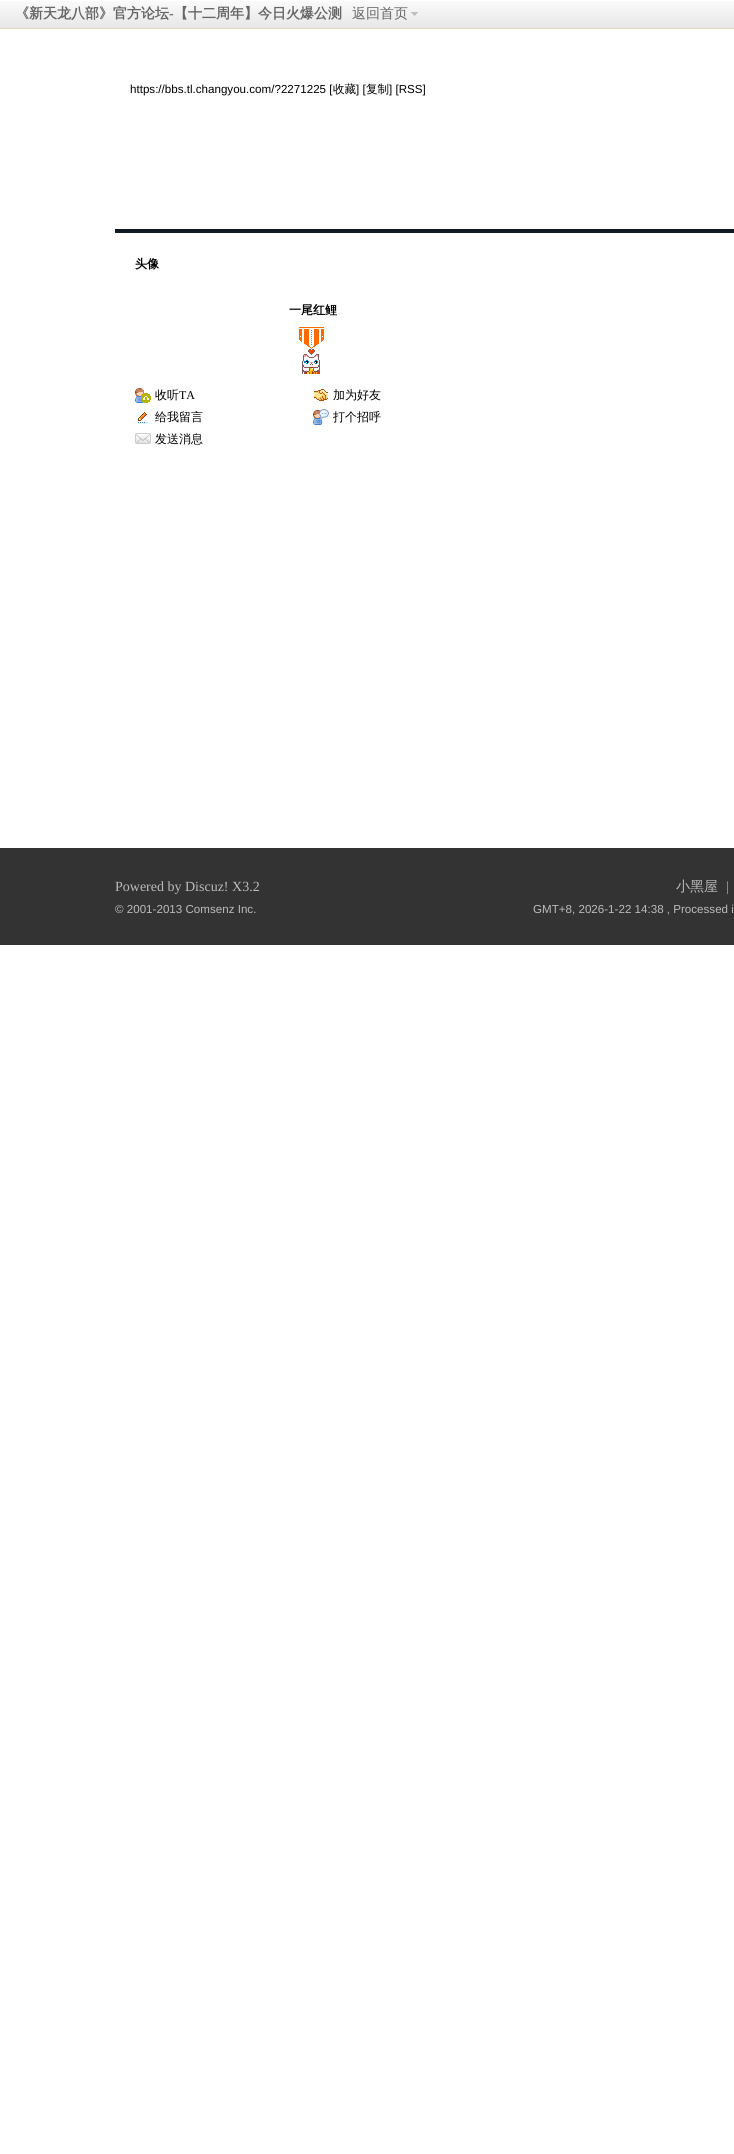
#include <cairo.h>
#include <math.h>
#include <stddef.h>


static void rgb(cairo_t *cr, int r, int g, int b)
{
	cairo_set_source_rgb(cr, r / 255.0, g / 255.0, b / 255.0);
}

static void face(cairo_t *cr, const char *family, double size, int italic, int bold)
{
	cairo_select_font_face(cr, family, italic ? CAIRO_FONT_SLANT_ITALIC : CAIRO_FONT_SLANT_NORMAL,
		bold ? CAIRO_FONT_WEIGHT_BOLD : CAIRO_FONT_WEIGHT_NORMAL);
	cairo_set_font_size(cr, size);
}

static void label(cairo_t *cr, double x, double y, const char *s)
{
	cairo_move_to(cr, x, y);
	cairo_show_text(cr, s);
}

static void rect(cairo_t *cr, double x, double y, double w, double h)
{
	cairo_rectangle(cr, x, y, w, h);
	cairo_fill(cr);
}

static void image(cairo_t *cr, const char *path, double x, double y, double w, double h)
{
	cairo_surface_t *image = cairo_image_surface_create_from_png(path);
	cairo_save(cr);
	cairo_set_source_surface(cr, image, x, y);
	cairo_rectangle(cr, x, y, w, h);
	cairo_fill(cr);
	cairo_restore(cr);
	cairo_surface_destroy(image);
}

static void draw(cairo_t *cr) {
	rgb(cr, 255, 255, 255);
	cairo_paint(cr);
	image(cr, "image0.png", 0, 1, 734, 27);
	rgb(cr, 226, 218, 191);
	rect(cr, 0, 28, 734, 1);
	face(cr, "WenQuanYi Zen Hei", 14, 0, 1);
	rgb(cr, 102, 102, 102);
	label(cr, 15, 18, "《新天龙八部》官方论坛");
	face(cr, "Liberation Serif", 14, 0, 1);
	label(cr, 169, 18, "-");
	face(cr, "WenQuanYi Zen Hei", 14, 0, 1);
	label(cr, 174, 18, "【十二周年】今日火爆公测");
	image(cr, "image1.png", 411, 12, 7, 4);
	face(cr, "WenQuanYi Zen Hei Medium", 14, 0, 0);
	label(cr, 352, 18, "返回首页");
	rgb(cr, 16, 26, 34);
	rect(cr, 115, 229, 619, 4);
	face(cr, "Liberation Sans", 11.6, 0, 0);
	rgb(cr, 0, 0, 0);
	label(cr, 130, 93, "https://bbs.tl.changyou.com/?2271225 [");
	face(cr, "WenQuanYi Zen Hei Medium", 11.6, 0, 0);
	label(cr, 333, 93, "收藏");
	face(cr, "Liberation Sans", 11.6, 0, 0);
	label(cr, 356, 93, "] [");
	face(cr, "WenQuanYi Zen Hei Medium", 11.6, 0, 0);
	label(cr, 366, 93, "复制");
	face(cr, "Liberation Sans", 11.6, 0, 0);
	label(cr, 389, 93, "] [RSS]");
	face(cr, "WenQuanYi Zen Hei", 12, 0, 1);
	label(cr, 135, 268, "头像");
	label(cr, 289, 314, "一尾红鲤");
	image(cr, "image2.png", 299, 327, 25, 47);
	image(cr, "image3.png", 135, 388, 16, 15);
	face(cr, "WenQuanYi Zen Hei Medium", 12, 0, 0);
	label(cr, 155, 399, "收听");
	face(cr, "Liberation Serif", 12, 0, 0);
	label(cr, 179, 399, "TA");
	image(cr, "image4.png", 314, 389, 14, 12);
	face(cr, "WenQuanYi Zen Hei Medium", 12, 0, 0);
	label(cr, 333, 399, "加为好友");
	image(cr, "image5.png", 138, 412, 11, 12);
	label(cr, 155, 421, "给我留言");
	image(cr, "image6.png", 313, 409, 16, 16);
	label(cr, 333, 421, "打个招呼");
	image(cr, "image7.png", 135, 433, 16, 11);
	label(cr, 155, 443, "发送消息");
	rgb(cr, 51, 51, 51);
	rect(cr, 0, 848, 734, 97);
	face(cr, "Liberation Serif", 14, 0, 0);
	rgb(cr, 187, 187, 187);
	label(cr, 115, 891, "Powered by Discuz! X3.2");
	face(cr, "Liberation Sans", 11.6, 0, 0);
	label(cr, 115, 913, "© 2001-2013 Comsenz Inc.");
	face(cr, "WenQuanYi Zen Hei Medium", 14, 0, 0);
	label(cr, 676, 891, "小黑屋");
	face(cr, "Liberation Serif", 14, 0, 0);
	rgb(cr, 170, 170, 170);
	label(cr, 726, 891, "|");
	face(cr, "Liberation Sans", 11.6, 0, 0);
	rgb(cr, 187, 187, 187);
	label(cr, 533, 913, "GMT+8, 2026-1-22 14:38 , Processed i");
}

int main(void) {
	cairo_surface_t *surface = cairo_image_surface_create(CAIRO_FORMAT_RGB24, 734, 2154);
	cairo_t *cr = cairo_create(surface);
	cairo_font_options_t *options = cairo_font_options_create();
	cairo_font_options_set_hint_metrics(options, CAIRO_HINT_METRICS_OFF);
	cairo_font_options_set_hint_style(options, CAIRO_HINT_STYLE_NONE);
	cairo_set_font_options(cr, options);
	cairo_set_miter_limit(cr, 4);
	draw(cr);
	cairo_surface_write_to_png(surface, "render.png");
	cairo_font_options_destroy(options);
	cairo_destroy(cr);
	cairo_surface_destroy(surface);
	return 0;
}
